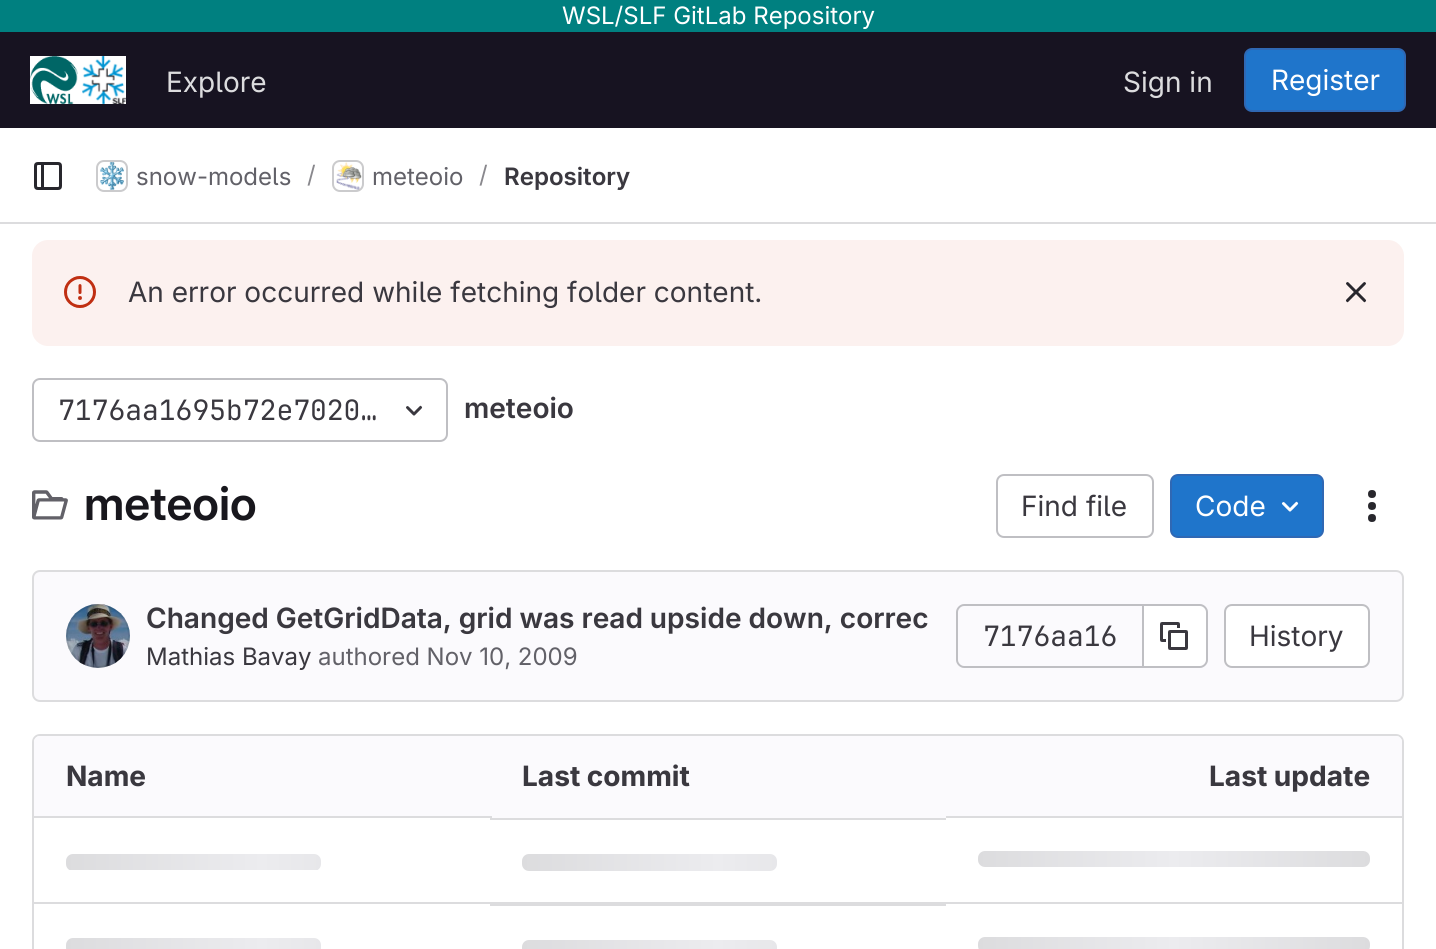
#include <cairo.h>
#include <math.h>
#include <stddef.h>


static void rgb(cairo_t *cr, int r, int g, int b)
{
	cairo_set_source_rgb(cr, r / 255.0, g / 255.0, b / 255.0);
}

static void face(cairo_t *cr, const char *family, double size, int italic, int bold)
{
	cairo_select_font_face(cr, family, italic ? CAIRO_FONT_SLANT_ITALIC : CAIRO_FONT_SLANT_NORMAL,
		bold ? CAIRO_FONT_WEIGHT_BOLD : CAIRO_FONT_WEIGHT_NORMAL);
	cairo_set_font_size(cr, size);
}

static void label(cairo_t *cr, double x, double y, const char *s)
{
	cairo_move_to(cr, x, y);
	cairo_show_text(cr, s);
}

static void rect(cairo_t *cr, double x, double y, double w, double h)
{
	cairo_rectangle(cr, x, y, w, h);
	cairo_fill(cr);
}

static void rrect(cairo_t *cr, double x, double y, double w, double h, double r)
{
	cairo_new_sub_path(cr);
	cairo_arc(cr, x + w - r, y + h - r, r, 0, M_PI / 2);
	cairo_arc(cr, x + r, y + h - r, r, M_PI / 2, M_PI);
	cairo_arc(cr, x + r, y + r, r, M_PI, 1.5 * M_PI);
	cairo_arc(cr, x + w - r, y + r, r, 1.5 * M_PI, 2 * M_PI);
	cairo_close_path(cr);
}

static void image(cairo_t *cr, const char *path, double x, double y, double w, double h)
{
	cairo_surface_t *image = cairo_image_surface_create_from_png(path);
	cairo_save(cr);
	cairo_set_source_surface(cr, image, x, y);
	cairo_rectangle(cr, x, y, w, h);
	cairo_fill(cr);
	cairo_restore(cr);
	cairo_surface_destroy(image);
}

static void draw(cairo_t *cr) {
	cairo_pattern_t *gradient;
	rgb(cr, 255, 255, 255);
	cairo_paint(cr);
	rgb(cr, 0, 128, 128);
	rect(cr, 0, 0, 1436, 32);
	face(cr, "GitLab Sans", 24, 0, 0);
	rgb(cr, 255, 255, 255);
	label(cr, 562, 24, "WSL/SLF GitLab Repository");
	rgb(cr, 23, 19, 33);
	rect(cr, 0, 32, 1436, 96);
	image(cr, "image0.png", 30, 56, 96, 48);
	face(cr, "GitLab Sans", 28, 0, 0);
	rgb(cr, 220, 220, 222);
	label(cr, 166, 92, "Explore");
	label(cr, 1123, 92, "Sign in");
	rgb(cr, 31, 117, 203);
	rrect(cr, 1245, 49, 160, 62, 7);
	cairo_fill_preserve(cr);
	rgb(cr, 47, 104, 180);
	cairo_stroke(cr);
	rgb(cr, 255, 255, 255);
	label(cr, 1271, 90, "Register");
	rgb(cr, 220, 220, 222);
	rect(cr, 0, 222, 1436, 2);
	image(cr, "image1.png", 34, 162, 28, 28);
	rrect(cr, 97, 161, 30, 30, 7);
	cairo_stroke(cr);
	image(cr, "image2.png", 100, 162, 24, 28);
	rrect(cr, 97, 161, 30, 30, 7);
	cairo_set_source_rgba(cr, 0.02, 0.02, 0.024, 0.08);
	cairo_stroke(cr);
	face(cr, "GitLab Sans", 24, 0, 0);
	rgb(cr, 98, 97, 104);
	label(cr, 136, 185, "snow-models");
	rgb(cr, 137, 136, 141);
	label(cr, 307, 183, "/");
	rrect(cr, 333, 161, 30, 30, 7);
	rgb(cr, 220, 220, 222);
	cairo_stroke(cr);
	image(cr, "image3.png", 336, 162, 26, 28);
	rrect(cr, 333, 161, 30, 30, 7);
	cairo_set_source_rgba(cr, 0.02, 0.02, 0.024, 0.08);
	cairo_stroke(cr);
	rgb(cr, 98, 97, 104);
	label(cr, 372, 185, "meteoio");
	rgb(cr, 137, 136, 141);
	label(cr, 479, 183, "/");
	face(cr, "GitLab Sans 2 SemiBold", 24, 0, 0);
	rgb(cr, 58, 56, 63);
	label(cr, 504, 185, "Repository");
	rgb(cr, 252, 241, 239);
	rrect(cr, 32, 240, 1372, 106, 16);
	cairo_fill(cr);
	image(cr, "image4.png", 64, 276, 32, 32);
	face(cr, "GitLab Sans", 28, 0, 0);
	rgb(cr, 58, 56, 63);
	label(cr, 128, 302, "An error occurred while fetching folder content.");
	image(cr, "image5.png", 1345, 282, 22, 21);
	rrect(cr, 33, 379, 414, 62, 7);
	rgb(cr, 191, 191, 195);
	cairo_stroke(cr);
	face(cr, "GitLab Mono", 28, 0, 0);
	rgb(cr, 58, 56, 63);
	label(cr, 58, 420, "7176aa1695b72e7020…");
	image(cr, "image6.png", 406, 405, 17, 11);
	face(cr, "GitLab Sans 2 SemiBold", 28, 0, 0);
	label(cr, 464, 418, "meteoio");
	image(cr, "image7.png", 32, 490, 36, 30);
	face(cr, "GitLab Sans SemiBold", 46, 0, 0);
	rgb(cr, 24, 23, 29);
	label(cr, 84, 520, "meteoio");
	rrect(cr, 997, 475, 156, 62, 7);
	rgb(cr, 191, 191, 195);
	cairo_stroke(cr);
	face(cr, "GitLab Sans", 28, 0, 0);
	rgb(cr, 58, 56, 63);
	label(cr, 1021, 516, "Find file");
	rgb(cr, 31, 117, 203);
	rrect(cr, 1171, 475, 152, 62, 7);
	cairo_fill_preserve(cr);
	rgb(cr, 47, 104, 180);
	cairo_stroke(cr);
	rgb(cr, 255, 255, 255);
	label(cr, 1195, 516, "Code");
	image(cr, "image8.png", 1281, 501, 18, 11);
	image(cr, "image9.png", 1368, 490, 8, 32);
	rgb(cr, 251, 250, 253);
	rrect(cr, 33, 571, 1370, 130, 7);
	cairo_fill_preserve(cr);
	rgb(cr, 220, 220, 222);
	cairo_stroke(cr);
	image(cr, "image10.png", 66, 604, 64, 64);
	cairo_arc(cr, 98, 636, 31, 0, 2 * M_PI);
	cairo_set_source_rgba(cr, 0.02, 0.02, 0.024, 0.08);
	cairo_stroke(cr);
	face(cr, "GitLab Sans 2 SemiBold", 28, 0, 0);
	rgb(cr, 58, 56, 63);
	label(cr, 146, 628, "Changed GetGridData, grid was read upside down, correc");
	face(cr, "GitLab Sans", 24, 0, 0);
	label(cr, 146, 665, "Mathias Bavay");
	rgb(cr, 98, 97, 104);
	label(cr, 318, 665, "authored Nov 10, 2009");
	rgb(cr, 191, 191, 195);
	cairo_set_fill_rule(cr, CAIRO_FILL_RULE_EVEN_ODD);
	cairo_new_path(cr);
	cairo_move_to(cr, 964, 604);
	cairo_line_to(cr, 1142, 604);
	cairo_line_to(cr, 1142, 668);
	cairo_line_to(cr, 964, 668);
	cairo_curve_to(cr, 960, 668, 956, 664, 956, 660);
	cairo_line_to(cr, 956, 612);
	cairo_curve_to(cr, 956, 608, 960, 604, 964, 604);
	cairo_close_path(cr);
	cairo_move_to(cr, 964, 606);
	cairo_line_to(cr, 1142, 606);
	cairo_line_to(cr, 1142, 666);
	cairo_line_to(cr, 964, 666);
	cairo_curve_to(cr, 961, 666, 958, 663, 958, 660);
	cairo_line_to(cr, 958, 612);
	cairo_curve_to(cr, 958, 609, 961, 606, 964, 606);
	cairo_close_path(cr);
	cairo_fill(cr);
	face(cr, "GitLab Mono", 28, 0, 0);
	rgb(cr, 58, 56, 63);
	label(cr, 983, 646, "7176aa16");
	rgb(cr, 255, 255, 255);
	cairo_new_path(cr);
	cairo_move_to(cr, 1144, 606);
	cairo_line_to(cr, 1200, 606);
	cairo_curve_to(cr, 1203.5, 606, 1206, 608.5, 1206, 612);
	cairo_line_to(cr, 1206, 660);
	cairo_curve_to(cr, 1206, 663.5, 1203.5, 666, 1200, 666);
	cairo_line_to(cr, 1144, 666);
	cairo_close_path(cr);
	cairo_fill(cr);
	rgb(cr, 191, 191, 195);
	cairo_new_path(cr);
	cairo_move_to(cr, 1144, 604);
	cairo_line_to(cr, 1200, 604);
	cairo_curve_to(cr, 1204, 604, 1208, 608, 1208, 612);
	cairo_line_to(cr, 1208, 660);
	cairo_curve_to(cr, 1208, 664, 1204, 668, 1200, 668);
	cairo_line_to(cr, 1144, 668);
	cairo_close_path(cr);
	cairo_move_to(cr, 1144, 606);
	cairo_line_to(cr, 1200, 606);
	cairo_curve_to(cr, 1203, 606, 1206, 609, 1206, 612);
	cairo_line_to(cr, 1206, 660);
	cairo_curve_to(cr, 1206, 663, 1203, 666, 1200, 666);
	cairo_line_to(cr, 1144, 666);
	cairo_close_path(cr);
	cairo_fill(cr);
	rect(cr, 1142, 604, 2, 64);
	image(cr, "image11.png", 1160, 622, 28, 28);
	rgb(cr, 255, 255, 255);
	rrect(cr, 1225, 605, 144, 62, 7);
	cairo_fill_preserve(cr);
	rgb(cr, 191, 191, 195);
	cairo_stroke(cr);
	face(cr, "GitLab Sans", 28, 0, 0);
	rgb(cr, 58, 56, 63);
	label(cr, 1249, 646, "History");
	rrect(cr, 33, 735, 1370, 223, 7);
	rgb(cr, 220, 220, 222);
	cairo_stroke(cr);
	rgb(cr, 251, 250, 253);
	cairo_new_path(cr);
	cairo_move_to(cr, 40, 736);
	cairo_line_to(cr, 490, 736);
	cairo_line_to(cr, 490, 818);
	cairo_line_to(cr, 34, 818);
	cairo_line_to(cr, 34, 742);
	cairo_curve_to(cr, 34, 738.5, 36.5, 736, 40, 736);
	cairo_close_path(cr);
	cairo_fill(cr);
	face(cr, "GitLab Sans", 28, 0, 1);
	rgb(cr, 58, 56, 63);
	label(cr, 66, 786, "Name");
	rgb(cr, 251, 250, 253);
	rect(cr, 490, 736, 456, 82);
	rgb(cr, 58, 56, 63);
	label(cr, 522, 786, "Last commit");
	rgb(cr, 251, 250, 253);
	cairo_new_path(cr);
	cairo_move_to(cr, 946, 736);
	cairo_line_to(cr, 1396, 736);
	cairo_curve_to(cr, 1399.5, 736, 1402, 738.5, 1402, 742);
	cairo_line_to(cr, 1402, 818);
	cairo_line_to(cr, 946, 818);
	cairo_close_path(cr);
	cairo_fill(cr);
	rgb(cr, 58, 56, 63);
	label(cr, 1209, 786, "Last update");
	rgb(cr, 220, 220, 222);
	rect(cr, 34, 902, 1368, 2);
	rect(cr, 34, 816, 458, 2);
	cairo_save(cr);
	cairo_set_fill_rule(cr, CAIRO_FILL_RULE_WINDING);
	rrect(cr, 66, 854, 255, 17, 7);
	cairo_clip(cr);
	gradient = cairo_pattern_create_linear(66, 854, 458, 854);
	cairo_pattern_add_color_stop_rgba(gradient, 0, 0.863, 0.863, 0.871, 1);
	cairo_pattern_add_color_stop_rgba(gradient, 0.5, 0.925, 0.925, 0.937, 1);
	cairo_pattern_add_color_stop_rgba(gradient, 1, 0.863, 0.863, 0.871, 1);
	cairo_set_source(cr, gradient);
	cairo_pattern_destroy(gradient);
	cairo_new_path(cr);
	cairo_move_to(cr, 73, 854);
	cairo_line_to(cr, 314, 854);
	cairo_curve_to(cr, 318, 854, 321, 857, 321, 861);
	cairo_line_to(cr, 321, 870);
	cairo_line_to(cr, 66, 870);
	cairo_line_to(cr, 66, 861);
	cairo_curve_to(cr, 66, 857, 69, 854, 73, 854);
	cairo_close_path(cr);
	cairo_fill(cr);
	cairo_restore(cr);
	rect(cr, 490, 818, 456, 2);
	gradient = cairo_pattern_create_linear(522, 854, 914, 854);
	cairo_pattern_add_color_stop_rgba(gradient, 0, 0.863, 0.863, 0.871, 1);
	cairo_pattern_add_color_stop_rgba(gradient, 0.5, 0.925, 0.925, 0.937, 1);
	cairo_pattern_add_color_stop_rgba(gradient, 1, 0.863, 0.863, 0.871, 1);
	cairo_set_source(cr, gradient);
	cairo_pattern_destroy(gradient);
	rrect(cr, 522, 854, 255, 17, 7);
	cairo_fill(cr);
	rgb(cr, 220, 220, 222);
	rect(cr, 946, 816, 456, 2);
	gradient = cairo_pattern_create_linear(978, 851, 1370, 851);
	cairo_pattern_add_color_stop_rgba(gradient, 0, 0.863, 0.863, 0.871, 1);
	cairo_pattern_add_color_stop_rgba(gradient, 0.5, 0.925, 0.925, 0.937, 1);
	cairo_pattern_add_color_stop_rgba(gradient, 1, 0.863, 0.863, 0.871, 1);
	cairo_set_source(cr, gradient);
	cairo_pattern_destroy(gradient);
	rrect(cr, 978, 851, 392, 16, 7);
	cairo_fill(cr);
	gradient = cairo_pattern_create_linear(66, 938, 458, 938);
	cairo_pattern_add_color_stop_rgba(gradient, 0, 0.863, 0.863, 0.871, 1);
	cairo_pattern_add_color_stop_rgba(gradient, 0.5, 0.925, 0.925, 0.937, 1);
	cairo_pattern_add_color_stop_rgba(gradient, 1, 0.863, 0.863, 0.871, 1);
	cairo_set_source(cr, gradient);
	cairo_pattern_destroy(gradient);
	rrect(cr, 66, 938, 255, 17, 7);
	cairo_fill(cr);
	rgb(cr, 220, 220, 222);
	rect(cr, 490, 904, 456, 2);
	gradient = cairo_pattern_create_linear(522, 940, 914, 940);
	cairo_pattern_add_color_stop_rgba(gradient, 0, 0.863, 0.863, 0.871, 1);
	cairo_pattern_add_color_stop_rgba(gradient, 0.5, 0.925, 0.925, 0.937, 1);
	cairo_pattern_add_color_stop_rgba(gradient, 1, 0.863, 0.863, 0.871, 1);
	cairo_set_source(cr, gradient);
	cairo_pattern_destroy(gradient);
	rrect(cr, 522, 940, 255, 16, 7);
	cairo_fill(cr);
	gradient = cairo_pattern_create_linear(978, 937, 1370, 937);
	cairo_pattern_add_color_stop_rgba(gradient, 0, 0.863, 0.863, 0.871, 1);
	cairo_pattern_add_color_stop_rgba(gradient, 0.5, 0.925, 0.925, 0.937, 1);
	cairo_pattern_add_color_stop_rgba(gradient, 1, 0.863, 0.863, 0.871, 1);
	cairo_set_source(cr, gradient);
	cairo_pattern_destroy(gradient);
	rrect(cr, 978, 937, 392, 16, 7);
	cairo_fill(cr);
}

int main(void) {
	cairo_surface_t *surface = cairo_image_surface_create(CAIRO_FORMAT_RGB24, 1436, 949);
	cairo_t *cr = cairo_create(surface);
	cairo_font_options_t *options = cairo_font_options_create();
	cairo_font_options_set_hint_metrics(options, CAIRO_HINT_METRICS_OFF);
	cairo_font_options_set_hint_style(options, CAIRO_HINT_STYLE_NONE);
	cairo_set_font_options(cr, options);
	cairo_set_miter_limit(cr, 4);
	draw(cr);
	cairo_surface_write_to_png(surface, "render.png");
	cairo_font_options_destroy(options);
	cairo_destroy(cr);
	cairo_surface_destroy(surface);
	return 0;
}
